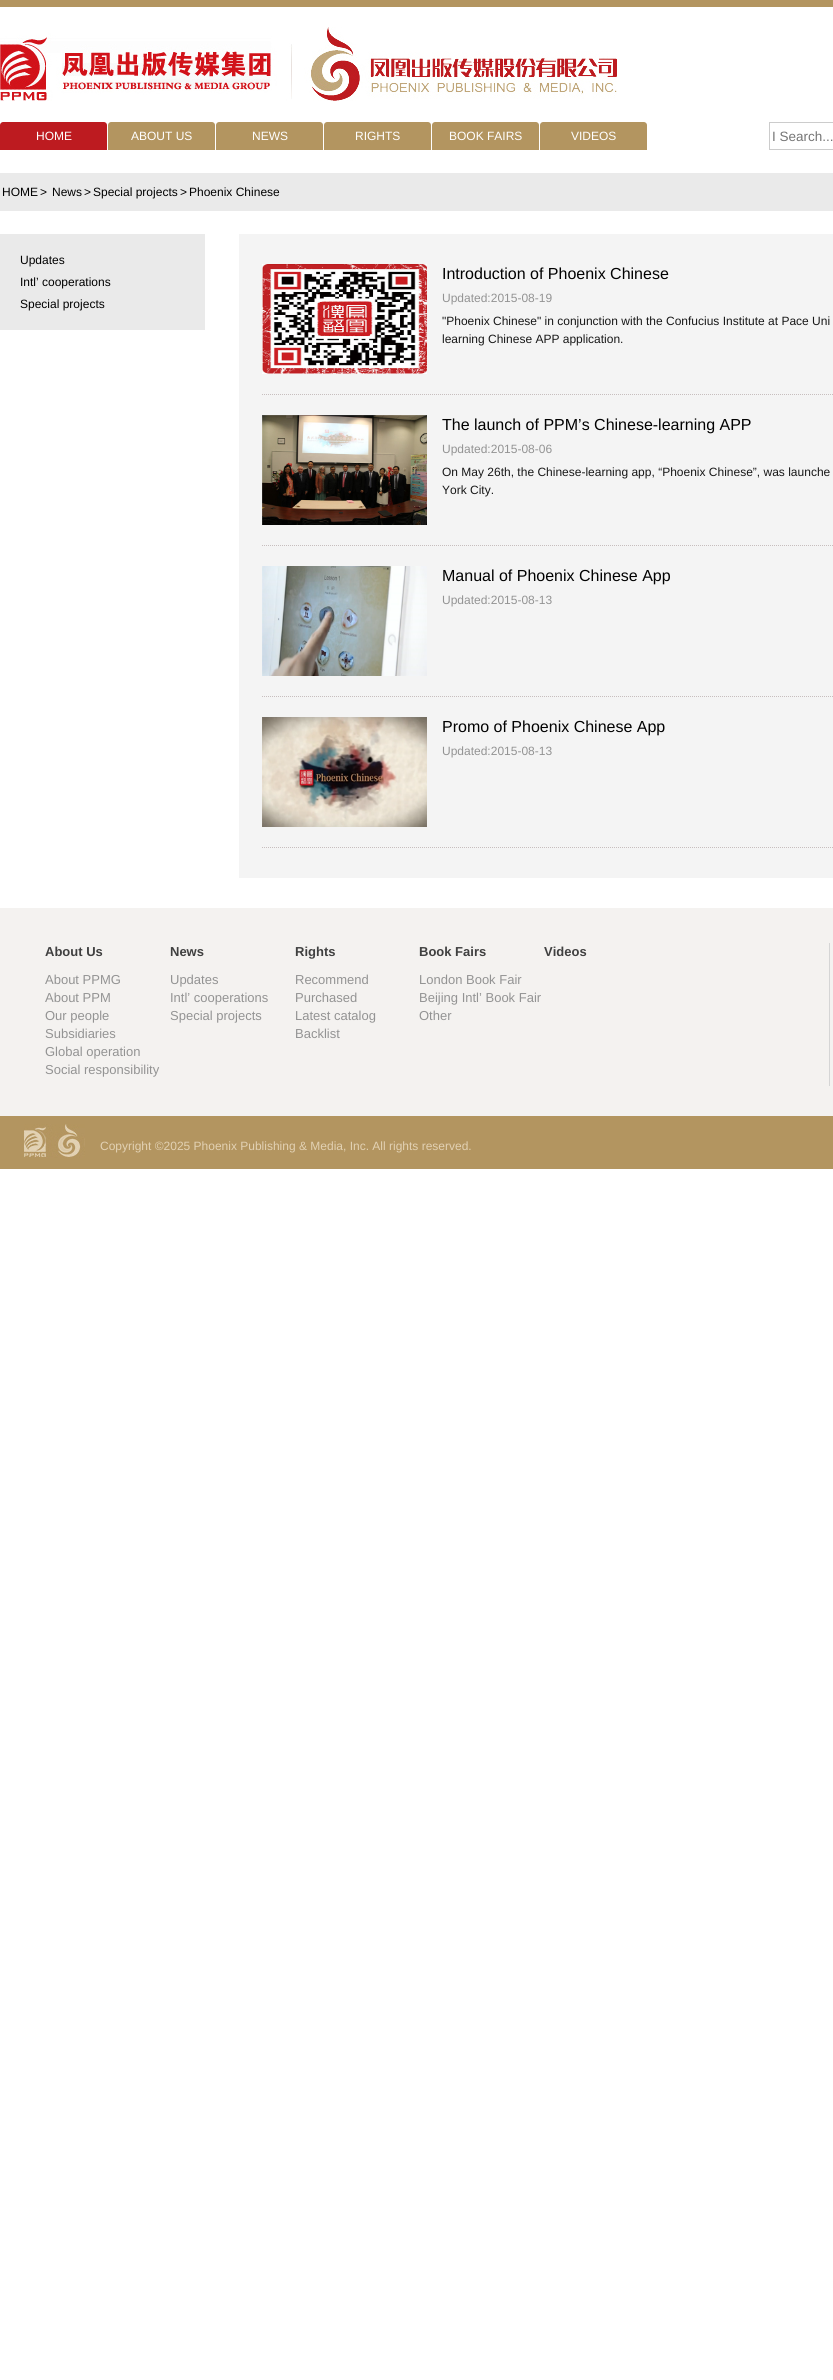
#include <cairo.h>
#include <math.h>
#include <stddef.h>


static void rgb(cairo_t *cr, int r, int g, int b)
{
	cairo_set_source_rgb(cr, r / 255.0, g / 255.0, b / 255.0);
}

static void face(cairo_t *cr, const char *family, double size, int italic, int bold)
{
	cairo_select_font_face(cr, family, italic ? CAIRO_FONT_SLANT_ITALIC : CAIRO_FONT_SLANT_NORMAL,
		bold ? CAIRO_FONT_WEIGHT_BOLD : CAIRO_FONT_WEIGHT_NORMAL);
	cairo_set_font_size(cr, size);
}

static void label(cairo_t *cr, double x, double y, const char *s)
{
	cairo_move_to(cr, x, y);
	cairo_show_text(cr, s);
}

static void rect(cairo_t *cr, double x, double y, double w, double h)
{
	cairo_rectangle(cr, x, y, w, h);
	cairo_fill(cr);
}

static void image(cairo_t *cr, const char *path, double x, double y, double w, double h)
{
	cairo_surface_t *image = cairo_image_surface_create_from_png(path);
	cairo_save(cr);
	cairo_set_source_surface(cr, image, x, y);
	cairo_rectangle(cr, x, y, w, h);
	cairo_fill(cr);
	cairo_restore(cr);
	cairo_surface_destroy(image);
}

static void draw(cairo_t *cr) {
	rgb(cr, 255, 255, 255);
	cairo_paint(cr);
	rgb(cr, 179, 149, 96);
	rect(cr, 0, 0, 833, 7);
	image(cr, "image0.png", 0, 27, 617, 74);
	rgb(cr, 189, 27, 32);
	cairo_new_path(cr);
	cairo_move_to(cr, 3, 122);
	cairo_line_to(cr, 104, 122);
	cairo_curve_to(cr, 105.5, 122, 107, 123.5, 107, 125);
	cairo_line_to(cr, 107, 150);
	cairo_line_to(cr, 0, 150);
	cairo_line_to(cr, 0, 125);
	cairo_curve_to(cr, 0, 123.5, 1.5, 122, 3, 122);
	cairo_close_path(cr);
	cairo_fill(cr);
	face(cr, "Liberation Sans", 12, 0, 0);
	rgb(cr, 255, 255, 255);
	label(cr, 36, 140, "HOME");
	rgb(cr, 179, 149, 96);
	cairo_new_path(cr);
	cairo_move_to(cr, 111, 122);
	cairo_line_to(cr, 212, 122);
	cairo_curve_to(cr, 213.5, 122, 215, 123.5, 215, 125);
	cairo_line_to(cr, 215, 150);
	cairo_line_to(cr, 108, 150);
	cairo_line_to(cr, 108, 125);
	cairo_curve_to(cr, 108, 123.5, 109.5, 122, 111, 122);
	cairo_close_path(cr);
	cairo_fill(cr);
	rgb(cr, 255, 255, 255);
	label(cr, 131, 140, "ABOUT US");
	rgb(cr, 179, 149, 96);
	cairo_new_path(cr);
	cairo_move_to(cr, 219, 122);
	cairo_line_to(cr, 320, 122);
	cairo_curve_to(cr, 321.5, 122, 323, 123.5, 323, 125);
	cairo_line_to(cr, 323, 150);
	cairo_line_to(cr, 216, 150);
	cairo_line_to(cr, 216, 125);
	cairo_curve_to(cr, 216, 123.5, 217.5, 122, 219, 122);
	cairo_close_path(cr);
	cairo_fill(cr);
	rgb(cr, 255, 255, 255);
	label(cr, 252, 140, "NEWS");
	rgb(cr, 179, 149, 96);
	cairo_new_path(cr);
	cairo_move_to(cr, 327, 122);
	cairo_line_to(cr, 428, 122);
	cairo_curve_to(cr, 429.5, 122, 431, 123.5, 431, 125);
	cairo_line_to(cr, 431, 150);
	cairo_line_to(cr, 324, 150);
	cairo_line_to(cr, 324, 125);
	cairo_curve_to(cr, 324, 123.5, 325.5, 122, 327, 122);
	cairo_close_path(cr);
	cairo_fill(cr);
	rgb(cr, 255, 255, 255);
	label(cr, 355, 140, "RIGHTS");
	rgb(cr, 179, 149, 96);
	cairo_new_path(cr);
	cairo_move_to(cr, 435, 122);
	cairo_line_to(cr, 536, 122);
	cairo_curve_to(cr, 537.5, 122, 539, 123.5, 539, 125);
	cairo_line_to(cr, 539, 150);
	cairo_line_to(cr, 432, 150);
	cairo_line_to(cr, 432, 125);
	cairo_curve_to(cr, 432, 123.5, 433.5, 122, 435, 122);
	cairo_close_path(cr);
	cairo_fill(cr);
	rgb(cr, 255, 255, 255);
	label(cr, 449, 140, "BOOK FAIRS");
	rgb(cr, 179, 149, 96);
	cairo_new_path(cr);
	cairo_move_to(cr, 543, 122);
	cairo_line_to(cr, 644, 122);
	cairo_curve_to(cr, 645.5, 122, 647, 123.5, 647, 125);
	cairo_line_to(cr, 647, 150);
	cairo_line_to(cr, 540, 150);
	cairo_line_to(cr, 540, 125);
	cairo_curve_to(cr, 540, 123.5, 541.5, 122, 543, 122);
	cairo_close_path(cr);
	cairo_fill(cr);
	rgb(cr, 255, 255, 255);
	label(cr, 571, 140, "VIDEOS");
	cairo_rectangle(cr, 769.5, 122.5, 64, 27);
	rgb(cr, 204, 204, 204);
	cairo_set_line_width(cr, 1);
	cairo_stroke(cr);
	face(cr, "Liberation Sans", 13.5, 0, 0);
	rgb(cr, 117, 117, 117);
	label(cr, 772, 141, "I Search...");
	rgb(cr, 234, 234, 234);
	rect(cr, 0, 173, 833, 38);
	face(cr, "Liberation Sans", 12, 0, 0);
	rgb(cr, 1, 1, 1);
	label(cr, 2, 196, "HOME");
	label(cr, 40, 196, ">");
	label(cr, 52, 196, "News");
	label(cr, 84, 196, ">");
	label(cr, 93, 196, "Special projects");
	label(cr, 180, 196, ">");
	label(cr, 189, 196, "Phoenix Chinese");
	rgb(cr, 234, 234, 234);
	rect(cr, 0, 234, 205, 96);
	rgb(cr, 1, 1, 1);
	label(cr, 20, 264, "Updates");
	label(cr, 20, 286, "Intl’ cooperations");
	label(cr, 20, 308, "Special projects");
	rgb(cr, 244, 244, 244);
	rect(cr, 239, 234, 594, 644);
	cairo_new_path(cr);
	cairo_move_to(cr, 262, 394.5);
	cairo_line_to(cr, 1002, 394.5);
	rgb(cr, 199, 190, 190);
	cairo_set_dash(cr, (double[]){1, 1}, 2, 0);
	cairo_stroke(cr);
	image(cr, "image1.png", 262, 264, 165, 110);
	face(cr, "Liberation Sans", 16, 0, 0);
	rgb(cr, 1, 1, 1);
	label(cr, 442, 279, "Introduction of Phoenix Chinese");
	face(cr, "Liberation Sans", 12, 0, 0);
	rgb(cr, 147, 147, 147);
	label(cr, 442, 302, "Updated:2015-08-19");
	rgb(cr, 24, 24, 24);
	label(cr, 442, 325, "\"Phoenix Chinese\" in conjunction with the Confucius Institute at Pace Uni");
	label(cr, 442, 343, "learning Chinese APP application.");
	cairo_new_path(cr);
	cairo_move_to(cr, 262, 545.5);
	cairo_line_to(cr, 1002, 545.5);
	rgb(cr, 199, 190, 190);
	cairo_stroke(cr);
	image(cr, "image2.png", 262, 415, 165, 110);
	face(cr, "Liberation Sans", 16, 0, 0);
	rgb(cr, 1, 1, 1);
	label(cr, 442, 430, "The launch of PPM’s Chinese-learning APP");
	face(cr, "Liberation Sans", 12, 0, 0);
	rgb(cr, 147, 147, 147);
	label(cr, 442, 453, "Updated:2015-08-06");
	rgb(cr, 24, 24, 24);
	label(cr, 442, 476, "On May 26th, the Chinese-learning app, “Phoenix Chinese”, was launche");
	label(cr, 442, 494, "York City.");
	cairo_new_path(cr);
	cairo_move_to(cr, 262, 696.5);
	cairo_line_to(cr, 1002, 696.5);
	rgb(cr, 199, 190, 190);
	cairo_stroke(cr);
	image(cr, "image3.png", 262, 566, 165, 110);
	face(cr, "Liberation Sans", 16, 0, 0);
	rgb(cr, 1, 1, 1);
	label(cr, 442, 581, "Manual of Phoenix Chinese App");
	face(cr, "Liberation Sans", 12, 0, 0);
	rgb(cr, 147, 147, 147);
	label(cr, 442, 604, "Updated:2015-08-13");
	cairo_new_path(cr);
	cairo_move_to(cr, 262, 847.5);
	cairo_line_to(cr, 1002, 847.5);
	rgb(cr, 199, 190, 190);
	cairo_stroke(cr);
	image(cr, "image4.png", 262, 717, 165, 110);
	face(cr, "Liberation Sans", 16, 0, 0);
	rgb(cr, 1, 1, 1);
	label(cr, 442, 732, "Promo of Phoenix Chinese App");
	face(cr, "Liberation Sans", 12, 0, 0);
	rgb(cr, 147, 147, 147);
	label(cr, 442, 755, "Updated:2015-08-13");
	rgb(cr, 244, 242, 240);
	rect(cr, 0, 908, 833, 208);
	face(cr, "Liberation Sans", 13, 0, 1);
	rgb(cr, 64, 64, 64);
	label(cr, 45, 956, "About Us");
	face(cr, "Liberation Sans", 13, 0, 0);
	rgb(cr, 147, 147, 147);
	label(cr, 45, 984, "About PPMG");
	label(cr, 45, 1002, "About PPM");
	label(cr, 45, 1020, "Our people");
	label(cr, 45, 1038, "Subsidiaries");
	label(cr, 45, 1056, "Global operation");
	label(cr, 45, 1074, "Social responsibility");
	face(cr, "Liberation Sans", 13, 0, 1);
	rgb(cr, 64, 64, 64);
	label(cr, 170, 956, "News");
	face(cr, "Liberation Sans", 13, 0, 0);
	rgb(cr, 147, 147, 147);
	label(cr, 170, 984, "Updates");
	label(cr, 170, 1002, "Intl’ cooperations");
	label(cr, 170, 1020, "Special projects");
	face(cr, "Liberation Sans", 13, 0, 1);
	rgb(cr, 64, 64, 64);
	label(cr, 295, 956, "Rights");
	face(cr, "Liberation Sans", 13, 0, 0);
	rgb(cr, 147, 147, 147);
	label(cr, 295, 984, "Recommend");
	label(cr, 295, 1002, "Purchased");
	label(cr, 295, 1020, "Latest catalog");
	label(cr, 295, 1038, "Backlist");
	face(cr, "Liberation Sans", 13, 0, 1);
	rgb(cr, 64, 64, 64);
	label(cr, 419, 956, "Book Fairs");
	face(cr, "Liberation Sans", 13, 0, 0);
	rgb(cr, 147, 147, 147);
	label(cr, 419, 984, "London Book Fair");
	label(cr, 419, 1002, "Beijing Intl’ Book Fair");
	label(cr, 419, 1020, "Other");
	face(cr, "Liberation Sans", 13, 0, 1);
	rgb(cr, 64, 64, 64);
	label(cr, 544, 956, "Videos");
	rgb(cr, 213, 213, 213);
	rect(cr, 829, 943, 1, 143);
	rgb(cr, 179, 149, 96);
	rect(cr, 0, 1116, 833, 53);
	image(cr, "image5.png", 24, 1124, 61, 34);
	face(cr, "Liberation Sans", 12, 0, 0);
	rgb(cr, 226, 209, 179);
	label(cr, 100, 1150, "Copyright ©2025 Phoenix Publishing & Media, Inc. All rights reserved.");
}

int main(void) {
	cairo_surface_t *surface = cairo_image_surface_create(CAIRO_FORMAT_RGB24, 833, 2380);
	cairo_t *cr = cairo_create(surface);
	cairo_font_options_t *options = cairo_font_options_create();
	cairo_font_options_set_hint_metrics(options, CAIRO_HINT_METRICS_OFF);
	cairo_font_options_set_hint_style(options, CAIRO_HINT_STYLE_NONE);
	cairo_set_font_options(cr, options);
	cairo_set_miter_limit(cr, 4);
	draw(cr);
	cairo_surface_write_to_png(surface, "render.png");
	cairo_font_options_destroy(options);
	cairo_destroy(cr);
	cairo_surface_destroy(surface);
	return 0;
}
